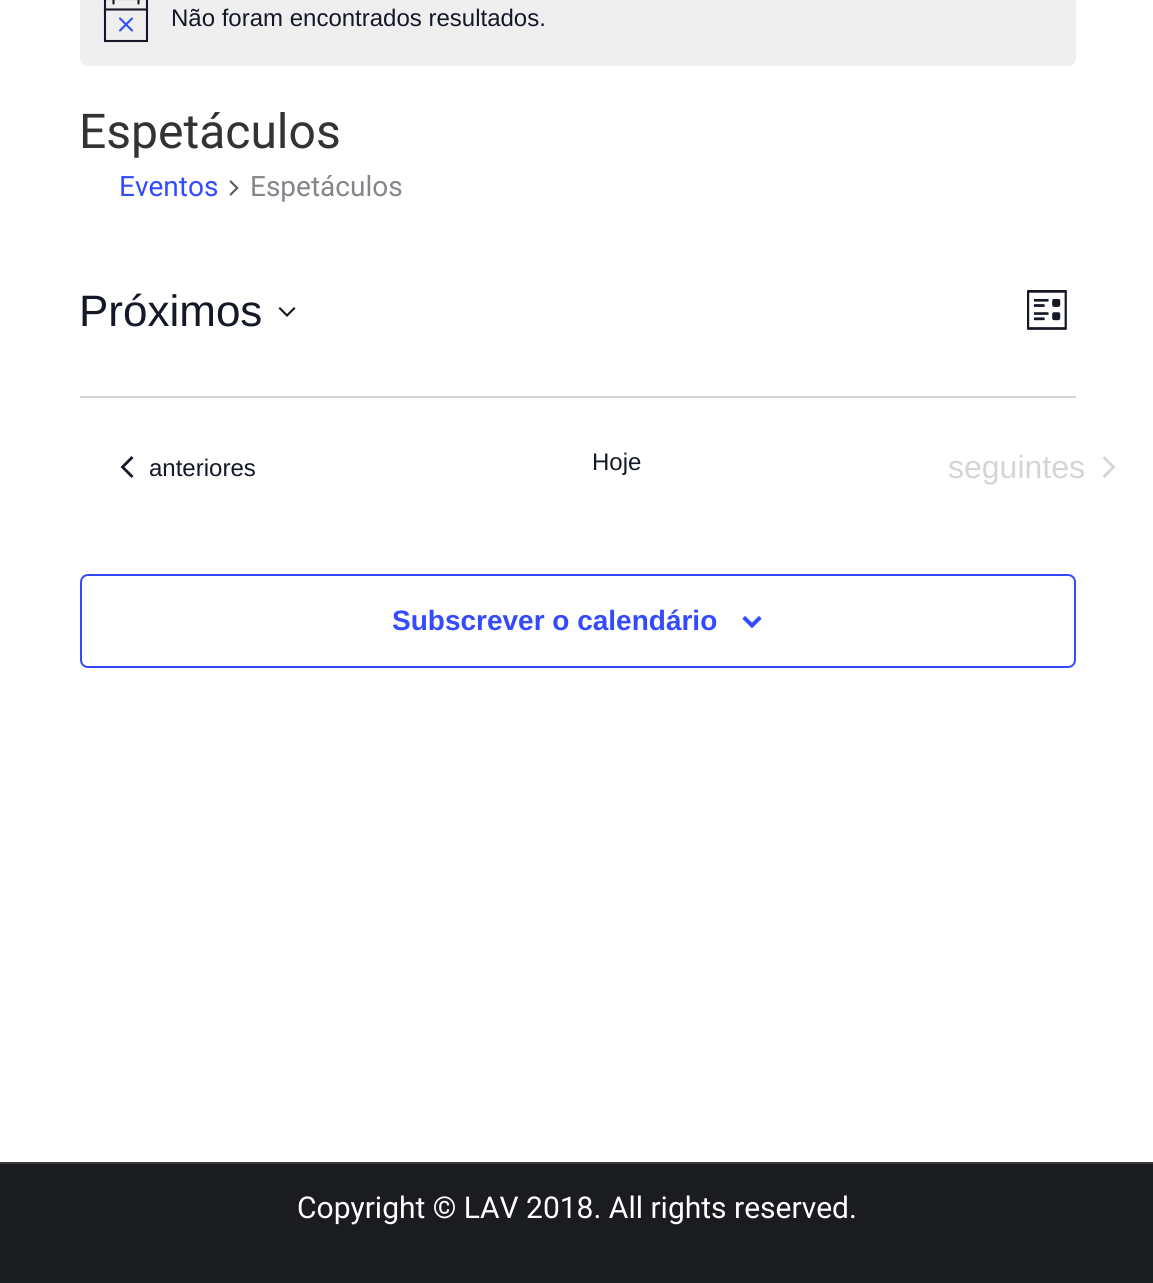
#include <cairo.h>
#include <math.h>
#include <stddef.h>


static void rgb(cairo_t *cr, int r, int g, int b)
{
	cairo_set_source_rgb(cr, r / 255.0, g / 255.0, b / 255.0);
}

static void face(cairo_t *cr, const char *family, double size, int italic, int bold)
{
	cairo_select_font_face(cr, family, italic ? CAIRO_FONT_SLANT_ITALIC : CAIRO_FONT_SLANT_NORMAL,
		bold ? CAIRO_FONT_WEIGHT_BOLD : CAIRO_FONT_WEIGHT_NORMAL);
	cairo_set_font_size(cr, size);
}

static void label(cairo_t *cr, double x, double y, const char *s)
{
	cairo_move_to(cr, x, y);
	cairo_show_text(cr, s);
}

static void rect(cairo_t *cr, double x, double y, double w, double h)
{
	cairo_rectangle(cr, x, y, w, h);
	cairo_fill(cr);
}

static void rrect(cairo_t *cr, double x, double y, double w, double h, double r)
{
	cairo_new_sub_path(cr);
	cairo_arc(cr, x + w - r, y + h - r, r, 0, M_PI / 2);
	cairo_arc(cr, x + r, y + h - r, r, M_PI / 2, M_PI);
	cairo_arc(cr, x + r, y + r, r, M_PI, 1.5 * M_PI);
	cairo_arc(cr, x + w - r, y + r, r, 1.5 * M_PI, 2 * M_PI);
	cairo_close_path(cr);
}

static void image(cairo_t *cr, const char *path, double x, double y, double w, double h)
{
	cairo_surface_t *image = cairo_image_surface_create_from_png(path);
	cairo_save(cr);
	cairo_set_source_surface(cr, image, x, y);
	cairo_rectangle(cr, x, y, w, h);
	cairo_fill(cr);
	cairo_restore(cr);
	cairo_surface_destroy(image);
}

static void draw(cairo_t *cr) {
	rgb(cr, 255, 255, 255);
	cairo_paint(cr);
	rgb(cr, 239, 239, 240);
	rrect(cr, 80, -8, 996, 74, 8);
	cairo_fill(cr);
	cairo_new_path(cr);
	cairo_move_to(cr, 105, -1);
	cairo_line_to(cr, 147, -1);
	cairo_line_to(cr, 147, 41);
	cairo_line_to(cr, 105, 41);
	cairo_close_path(cr);
	rgb(cr, 20, 24, 39);
	cairo_set_line_width(cr, 2.1);
	cairo_stroke(cr);
	cairo_new_path(cr);
	cairo_move_to(cr, 120, 18.5);
	cairo_line_to(cr, 132, 30.5);
	cairo_move_to(cr, 132, 18.5);
	cairo_line_to(cr, 120, 30.5);
	rgb(cr, 51, 74, 255);
	cairo_set_line_cap(cr, CAIRO_LINE_CAP_ROUND);
	cairo_stroke(cr);
	cairo_new_path(cr);
	cairo_move_to(cr, 113.5, -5);
	cairo_line_to(cr, 113.5, 3.5);
	cairo_move_to(cr, 138.5, -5);
	cairo_line_to(cr, 138.5, 3.5);
	rgb(cr, 20, 24, 39);
	cairo_stroke(cr);
	cairo_new_path(cr);
	cairo_move_to(cr, 105, 9.5);
	cairo_line_to(cr, 147, 9.5);
	cairo_set_line_cap(cr, CAIRO_LINE_CAP_SQUARE);
	cairo_stroke(cr);
	face(cr, "Liberation Sans", 24, 0, 0);
	label(cr, 171, 26, "Não foram encontrados resultados.");
	face(cr, "Roboto", 48, 0, 0);
	rgb(cr, 51, 51, 51);
	label(cr, 79, 148, "Espetáculos");
	face(cr, "Roboto", 28, 0, 0);
	rgb(cr, 51, 74, 255);
	label(cr, 119, 196, "Eventos");
	image(cr, "image0.png", 229, 180, 10, 16);
	rgb(cr, 133, 134, 140);
	label(cr, 250, 196, "Espetáculos");
	face(cr, "Liberation Sans", 44, 0, 0);
	rgb(cr, 20, 24, 39);
	label(cr, 79, 326, "Próximos");
	cairo_set_fill_rule(cr, CAIRO_FILL_RULE_EVEN_ODD);
	cairo_new_path(cr);
	cairo_move_to(cr, 280, 307);
	cairo_line_to(cr, 287, 314);
	cairo_line_to(cr, 294, 307);
	cairo_line_to(cr, 295.5, 308.5);
	cairo_line_to(cr, 287, 317);
	cairo_line_to(cr, 278.5, 308.5);
	cairo_close_path(cr);
	cairo_fill(cr);
	image(cr, "image1.png", 1027, 290, 40, 40);
	rgb(cr, 213, 213, 213);
	rect(cr, 80, 396, 996, 2);
	rgb(cr, 20, 24, 39);
	cairo_set_fill_rule(cr, CAIRO_FILL_RULE_WINDING);
	cairo_new_path(cr);
	cairo_move_to(cr, 133.5, 476);
	cairo_line_to(cr, 131.5, 478);
	cairo_line_to(cr, 120.5, 467);
	cairo_line_to(cr, 131.5, 456);
	cairo_line_to(cr, 133.5, 458);
	cairo_line_to(cr, 124.5, 467);
	cairo_close_path(cr);
	cairo_fill(cr);
	face(cr, "Liberation Sans", 24, 0, 0);
	label(cr, 149, 476, "anteriores");
	label(cr, 592, 470, "Hoje");
	face(cr, "Liberation Sans", 32, 0, 0);
	rgb(cr, 213, 213, 213);
	label(cr, 948, 478, "seguintes");
	cairo_new_path(cr);
	cairo_move_to(cr, 1102.5, 458);
	cairo_line_to(cr, 1104.5, 456);
	cairo_line_to(cr, 1115.5, 467);
	cairo_line_to(cr, 1104.5, 478);
	cairo_line_to(cr, 1102.5, 476);
	cairo_line_to(cr, 1111.5, 467);
	cairo_close_path(cr);
	cairo_fill(cr);
	rrect(cr, 81, 575, 994, 92, 7);
	rgb(cr, 51, 74, 255);
	cairo_set_line_width(cr, 2);
	cairo_set_line_cap(cr, CAIRO_LINE_CAP_BUTT);
	cairo_stroke(cr);
	face(cr, "Liberation Sans", 28, 0, 1);
	label(cr, 392, 630, "Subscrever o calendário");
	image(cr, "image2.png", 742, 616, 20, 12);
	rgb(cr, 26, 28, 32);
	rect(cr, 0, 1164, 1153, 119);
	rgb(cr, 53, 55, 59);
	rect(cr, 0, 1162, 1153, 2);
	face(cr, "Roboto", 30, 0, 0);
	rgb(cr, 255, 255, 255);
	label(cr, 297, 1218, "Copyright © LAV 2018. All rights reserved.");
}

int main(void) {
	cairo_surface_t *surface = cairo_image_surface_create(CAIRO_FORMAT_RGB24, 1153, 1283);
	cairo_t *cr = cairo_create(surface);
	cairo_font_options_t *options = cairo_font_options_create();
	cairo_font_options_set_hint_metrics(options, CAIRO_HINT_METRICS_OFF);
	cairo_font_options_set_hint_style(options, CAIRO_HINT_STYLE_NONE);
	cairo_set_font_options(cr, options);
	cairo_set_miter_limit(cr, 4);
	draw(cr);
	cairo_surface_write_to_png(surface, "render.png");
	cairo_font_options_destroy(options);
	cairo_destroy(cr);
	cairo_surface_destroy(surface);
	return 0;
}
